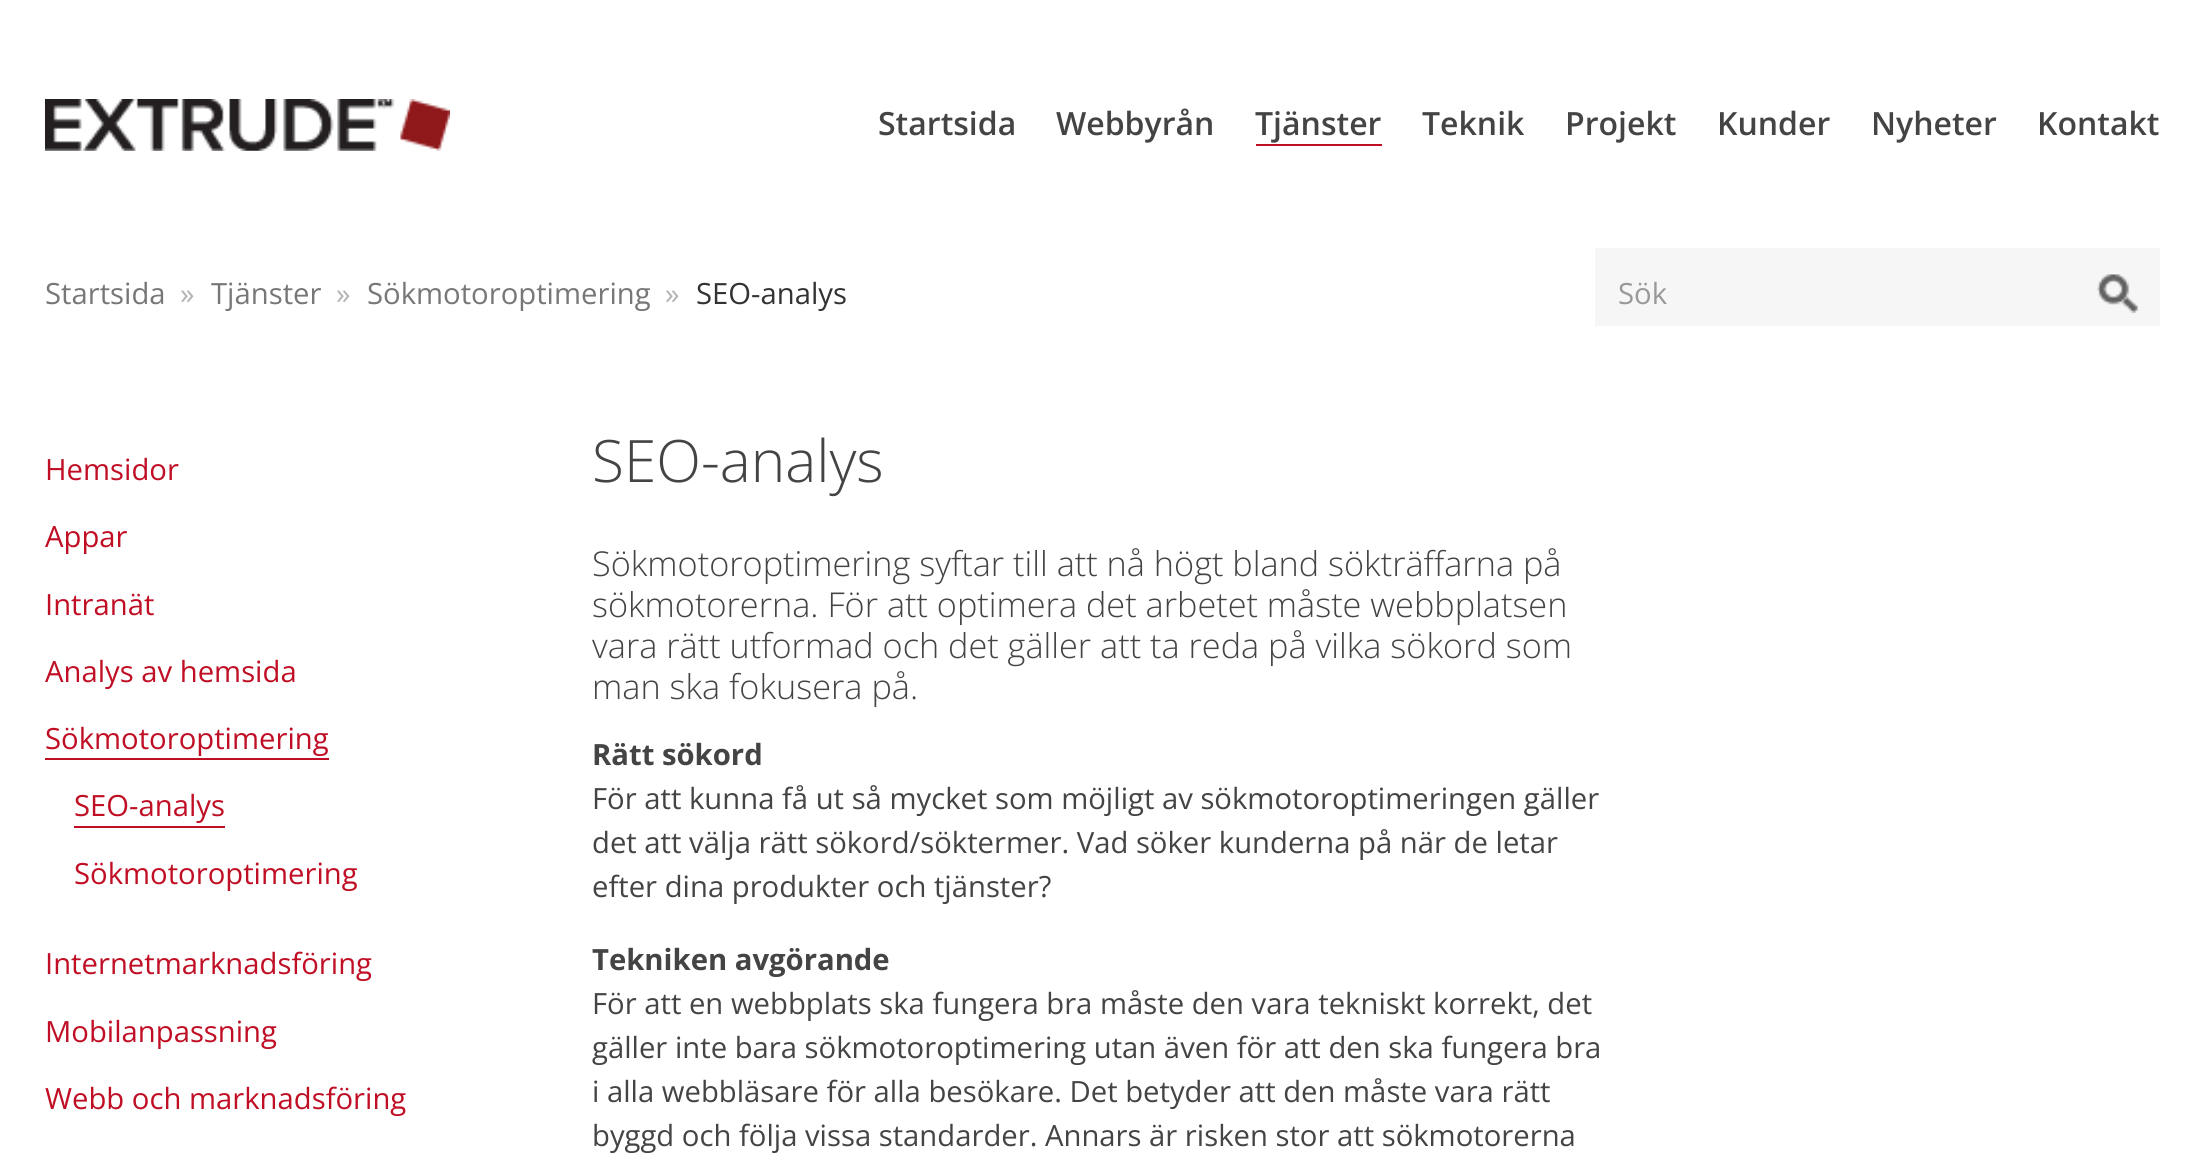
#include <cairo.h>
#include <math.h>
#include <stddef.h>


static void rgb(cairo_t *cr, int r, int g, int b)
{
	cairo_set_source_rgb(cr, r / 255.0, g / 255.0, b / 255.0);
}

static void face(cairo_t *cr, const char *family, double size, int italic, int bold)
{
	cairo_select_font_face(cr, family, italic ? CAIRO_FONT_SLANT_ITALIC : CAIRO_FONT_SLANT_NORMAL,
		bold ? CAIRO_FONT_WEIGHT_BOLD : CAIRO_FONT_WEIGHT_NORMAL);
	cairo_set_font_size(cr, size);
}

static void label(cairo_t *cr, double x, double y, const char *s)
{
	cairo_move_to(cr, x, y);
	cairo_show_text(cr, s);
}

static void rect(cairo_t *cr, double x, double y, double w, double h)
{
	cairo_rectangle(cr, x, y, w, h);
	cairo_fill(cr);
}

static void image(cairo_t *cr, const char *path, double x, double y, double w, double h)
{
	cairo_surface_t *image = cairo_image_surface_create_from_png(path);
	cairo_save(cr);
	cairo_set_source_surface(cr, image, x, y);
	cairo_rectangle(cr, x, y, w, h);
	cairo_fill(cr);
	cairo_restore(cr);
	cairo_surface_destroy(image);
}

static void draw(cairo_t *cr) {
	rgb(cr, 255, 255, 255);
	cairo_paint(cr);
	image(cr, "image0.png", 45, 99, 405, 52);
	face(cr, "Open Sans SemiBold", 32, 0, 0);
	rgb(cr, 68, 68, 68);
	label(cr, 878, 135, "Startsida");
	label(cr, 1056, 135, "Webbyrån");
	label(cr, 1255, 135, "Tjänster");
	rgb(cr, 192, 15, 37);
	rect(cr, 1256, 144, 126, 2);
	rgb(cr, 68, 68, 68);
	label(cr, 1422, 135, "Teknik");
	label(cr, 1565, 135, "Projekt");
	label(cr, 1717, 135, "Kunder");
	label(cr, 1871, 135, "Nyheter");
	label(cr, 2037, 135, "Kontakt");
	face(cr, "Open Sans", 29.25, 0, 0);
	rgb(cr, 119, 119, 119);
	label(cr, 45, 304, "Startsida");
	rgb(cr, 180, 180, 180);
	label(cr, 180, 304, "»");
	rgb(cr, 119, 119, 119);
	label(cr, 211, 304, "Tjänster");
	rgb(cr, 180, 180, 180);
	label(cr, 336, 304, "»");
	rgb(cr, 119, 119, 119);
	label(cr, 367, 304, "Sökmotoroptimering");
	rgb(cr, 180, 180, 180);
	label(cr, 665, 304, "»");
	rgb(cr, 51, 51, 51);
	label(cr, 696, 304, "SEO-analys");
	rgb(cr, 246, 246, 246);
	rect(cr, 1595, 248, 565, 78);
	rgb(cr, 153, 153, 153);
	label(cr, 1618, 304, "Sök");
	image(cr, "image1.png", 2097, 274, 41, 39);
	rgb(cr, 192, 15, 37);
	label(cr, 45, 480, "Hemsidor");
	label(cr, 45, 547, "Appar");
	label(cr, 45, 615, "Intranät");
	label(cr, 45, 682, "Analys av hemsida");
	label(cr, 45, 749, "Sökmotoroptimering");
	rect(cr, 45, 758, 284, 2);
	label(cr, 74, 816, "SEO-analys");
	rect(cr, 74, 826, 151, 2);
	label(cr, 74, 884, "Sökmotoroptimering");
	label(cr, 45, 974, "Internetmarknadsföring");
	label(cr, 45, 1042, "Mobilanpassning");
	label(cr, 45, 1109, "Webb och marknadsföring");
	face(cr, "Open Sans Light", 58.5, 0, 0);
	rgb(cr, 68, 68, 68);
	label(cr, 592, 482, "SEO-analys");
	face(cr, "Open Sans Light", 34.25, 0, 0);
	label(cr, 592, 576, "Sökmotoroptimering syftar till att nå högt bland sökträffarna på");
	label(cr, 592, 617, "sökmotorerna. För att optimera det arbetet måste webbplatsen");
	label(cr, 592, 658, "vara rätt utformad och det gäller att ta reda på vilka sökord som");
	label(cr, 592, 699, "man ska fokusera på.");
	face(cr, "Open Sans", 29.25, 0, 1);
	label(cr, 592, 765, "Rätt sökord");
	face(cr, "Open Sans", 29.25, 0, 0);
	label(cr, 592, 809, "För att kunna få ut så mycket som möjligt av sökmotoroptimeringen gäller");
	label(cr, 592, 853, "det att välja rätt sökord/söktermer. Vad söker kunderna på när de letar");
	label(cr, 592, 897, "efter dina produkter och tjänster?");
	face(cr, "Open Sans", 29.25, 0, 1);
	label(cr, 592, 970, "Tekniken avgörande");
	face(cr, "Open Sans", 29.25, 0, 0);
	label(cr, 592, 1014, "För att en webbplats ska fungera bra måste den vara tekniskt korrekt, det");
	label(cr, 592, 1058, "gäller inte bara sökmotoroptimering utan även för att den ska fungera bra");
	label(cr, 592, 1102, "i alla webbläsare för alla besökare. Det betyder att den måste vara rätt");
	label(cr, 592, 1146, "byggd och följa vissa standarder. Annars är risken stor att sökmotorerna");
}

int main(void) {
	cairo_surface_t *surface = cairo_image_surface_create(CAIRO_FORMAT_RGB24, 2204, 1161);
	cairo_t *cr = cairo_create(surface);
	cairo_font_options_t *options = cairo_font_options_create();
	cairo_font_options_set_hint_metrics(options, CAIRO_HINT_METRICS_OFF);
	cairo_font_options_set_hint_style(options, CAIRO_HINT_STYLE_NONE);
	cairo_set_font_options(cr, options);
	cairo_set_miter_limit(cr, 4);
	draw(cr);
	cairo_surface_write_to_png(surface, "render.png");
	cairo_font_options_destroy(options);
	cairo_destroy(cr);
	cairo_surface_destroy(surface);
	return 0;
}
